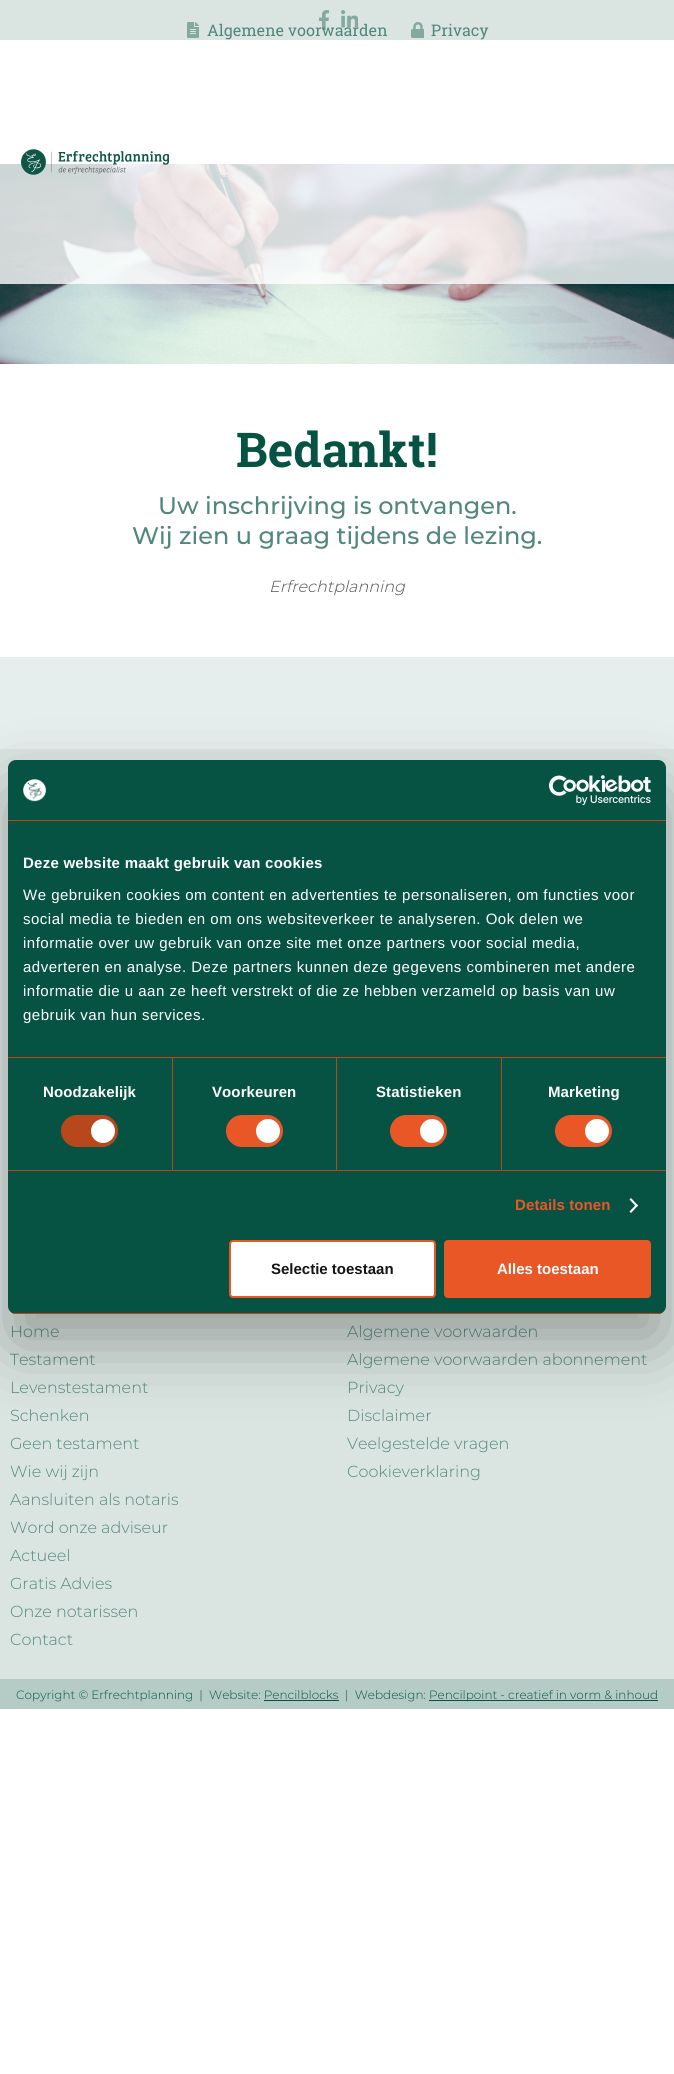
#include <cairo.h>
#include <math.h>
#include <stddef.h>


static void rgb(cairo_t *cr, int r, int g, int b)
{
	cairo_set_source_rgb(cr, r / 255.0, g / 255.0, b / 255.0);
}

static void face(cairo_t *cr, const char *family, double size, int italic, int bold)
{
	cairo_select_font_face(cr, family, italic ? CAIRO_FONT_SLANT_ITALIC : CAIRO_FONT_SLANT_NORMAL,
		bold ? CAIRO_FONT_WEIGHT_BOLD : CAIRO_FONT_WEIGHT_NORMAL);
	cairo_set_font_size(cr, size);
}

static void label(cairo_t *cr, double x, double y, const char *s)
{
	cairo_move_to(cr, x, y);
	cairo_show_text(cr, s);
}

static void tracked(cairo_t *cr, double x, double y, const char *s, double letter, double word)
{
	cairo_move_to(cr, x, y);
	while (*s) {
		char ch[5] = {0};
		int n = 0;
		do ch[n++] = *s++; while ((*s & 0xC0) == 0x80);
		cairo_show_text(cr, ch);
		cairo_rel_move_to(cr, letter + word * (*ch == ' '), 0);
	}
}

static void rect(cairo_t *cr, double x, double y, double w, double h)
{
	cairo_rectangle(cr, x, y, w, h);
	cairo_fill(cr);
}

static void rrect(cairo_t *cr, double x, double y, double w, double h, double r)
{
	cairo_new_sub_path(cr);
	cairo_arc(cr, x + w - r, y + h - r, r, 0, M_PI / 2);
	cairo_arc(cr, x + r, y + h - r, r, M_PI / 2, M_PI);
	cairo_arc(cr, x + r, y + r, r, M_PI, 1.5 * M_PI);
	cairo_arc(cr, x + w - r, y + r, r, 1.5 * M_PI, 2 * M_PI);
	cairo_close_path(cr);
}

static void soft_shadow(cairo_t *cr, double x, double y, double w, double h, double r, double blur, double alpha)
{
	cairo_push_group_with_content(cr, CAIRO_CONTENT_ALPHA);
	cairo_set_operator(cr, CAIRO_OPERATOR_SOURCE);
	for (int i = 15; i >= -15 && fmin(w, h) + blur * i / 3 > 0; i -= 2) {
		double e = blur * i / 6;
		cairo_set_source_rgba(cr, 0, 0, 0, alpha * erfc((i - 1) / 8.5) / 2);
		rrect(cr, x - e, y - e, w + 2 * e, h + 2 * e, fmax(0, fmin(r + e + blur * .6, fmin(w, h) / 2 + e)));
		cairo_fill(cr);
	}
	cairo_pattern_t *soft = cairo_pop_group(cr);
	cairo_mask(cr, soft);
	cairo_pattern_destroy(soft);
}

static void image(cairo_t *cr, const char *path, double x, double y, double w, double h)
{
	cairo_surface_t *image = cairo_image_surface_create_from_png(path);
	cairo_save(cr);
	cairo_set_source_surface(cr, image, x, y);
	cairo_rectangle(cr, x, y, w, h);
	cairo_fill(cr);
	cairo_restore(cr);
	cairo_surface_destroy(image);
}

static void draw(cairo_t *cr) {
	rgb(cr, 255, 255, 255);
	cairo_paint(cr);
	rgb(cr, 218, 229, 226);
	rect(cr, 0, 0, 674, 40);
	image(cr, "image0.png", 319, 10, 10, 20);
	image(cr, "image1.png", 341, 10, 17, 18);
	image(cr, "image2.png", 187, 22, 12, 16);
	face(cr, "Roboto Slab", 16, 0, 0);
	rgb(cr, 81, 135, 124);
	label(cr, 207, 36, "Algemene voorwaarden");
	image(cr, "image3.png", 411, 22, 13, 16);
	label(cr, 431, 36, "Privacy");
	image(cr, "image5.png", 0, 164, 674, 200);
	cairo_set_source_rgba(cr, 1, 1, 1, 0.8);
	rect(cr, 0, 164, 674, 120);
	image(cr, "image4.png", 21, 149, 148, 26);
	face(cr, "Roboto Slab", 48, 0, 1);
	rgb(cr, 7, 83, 67);
	label(cr, 236, 467, "Bedankt!");
	face(cr, "Montserrat Medium", 24, 0, 0);
	rgb(cr, 81, 135, 124);
	label(cr, 158, 514, "Uw inschrijving is ontvangen.");
	label(cr, 132, 544, "Wij zien u graag tijdens de lezing.");
	face(cr, "Montserrat Light", 16, 1, 0);
	rgb(cr, 79, 79, 79);
	label(cr, 269, 592, "Erfrechtplanning");
	rgb(cr, 230, 238, 237);
	rect(cr, 0, 657, 674, 92);
	rgb(cr, 218, 229, 226);
	rect(cr, 0, 749, 674, 930);
	face(cr, "Montserrat Light", 16, 0, 0);
	rgb(cr, 81, 135, 124);
	label(cr, 10, 1337, "Home");
	label(cr, 10, 1365, "Testament");
	label(cr, 10, 1393, "Levenstestament");
	label(cr, 10, 1421, "Schenken");
	label(cr, 10, 1449, "Geen testament");
	label(cr, 10, 1477, "Wie wij zijn");
	label(cr, 10, 1505, "Aansluiten als notaris");
	label(cr, 10, 1533, "Word onze adviseur");
	label(cr, 10, 1561, "Actueel");
	label(cr, 10, 1589, "Gratis Advies");
	label(cr, 10, 1617, "Onze notarissen");
	label(cr, 10, 1645, "Contact");
	label(cr, 347, 1337, "Algemene voorwaarden");
	label(cr, 347, 1365, "Algemene voorwaarden abonnement");
	label(cr, 347, 1393, "Privacy");
	label(cr, 347, 1421, "Disclaimer");
	label(cr, 347, 1449, "Veelgestelde vragen");
	label(cr, 347, 1477, "Cookieverklaring");
	rgb(cr, 180, 203, 198);
	rect(cr, 0, 1679, 674, 30);
	face(cr, "Montserrat Light", 12, 0, 0);
	rgb(cr, 7, 83, 67);
	label(cr, 16, 1699, "Copyright © Erfrechtplanning  |  Website: Pencilblocks");
	label(cr, 345, 1699, "|  Webdesign:");
	rect(cr, 429, 1700, 229, 1);
	label(cr, 429, 1699, "Pencilpoint - creatief in vorm & inhoud");
	rect(cr, 264, 1700, 75, 1);
	rgb(cr, 0, 0, 0);
	soft_shadow(cr, 8, 792, 658, 554, 8, 34, 0.3);
	rgb(cr, 7, 83, 67);
	rrect(cr, 8, 760, 658, 554, 8);
	cairo_fill(cr);
	rgb(cr, 184, 71, 27);
	rect(cr, 8, 820, 658, 1);
	image(cr, "image6.png", 23, 779, 23, 23);
	image(cr, "image7.png", 549, 775, 102, 30);
	rect(cr, 8, 1057, 658, 1);
	face(cr, "Liberation Sans", 15, 0, 1);
	rgb(cr, 255, 255, 255);
	tracked(cr, 23, 868, "Deze website maakt gebruik van cookies", 0.25, 0);
	face(cr, "Liberation Sans", 15, 0, 0);
	tracked(cr, 23, 900, "We gebruiken cookies om content en advertenties te personaliseren, om functies voor", 0.5, 0);
	tracked(cr, 23, 924, "social media te bieden en om ons websiteverkeer te analyseren. Ook delen we", 0.5, 0);
	tracked(cr, 23, 948, "informatie over uw gebruik van onze site met onze partners voor social media,", 0.5, 0);
	tracked(cr, 23, 972, "adverteren en analyse. Deze partners kunnen deze gegevens combineren met andere", 0.5, 0);
	tracked(cr, 23, 996, "informatie die u aan ze heeft verstrekt of die ze hebben verzameld op basis van uw", 0.5, 0);
	tracked(cr, 23, 1020, "gebruik van hun services.", 0.5, 0);
	rgb(cr, 184, 71, 27);
	rect(cr, 8, 1170, 658, 1);
	rect(cr, 172, 1058, 1, 112);
	face(cr, "Liberation Sans", 15, 0, 1);
	rgb(cr, 255, 255, 255);
	tracked(cr, 43, 1097, "Noodzakelijk", 0.1, 0);
	rgb(cr, 184, 71, 27);
	rrect(cr, 61, 1115, 57, 32, 16);
	cairo_fill(cr);
	rgb(cr, 255, 255, 255);
	cairo_arc(cr, 103, 1131, 12, 0, 2 * M_PI);
	cairo_fill(cr);
	rgb(cr, 184, 71, 27);
	rect(cr, 336, 1058, 1, 112);
	rgb(cr, 255, 255, 255);
	tracked(cr, 212, 1097, "Voorkeuren", 0.1, 0);
	rgb(cr, 233, 87, 38);
	rrect(cr, 226, 1115, 57, 32, 16);
	cairo_fill(cr);
	rgb(cr, 255, 255, 255);
	cairo_arc(cr, 268, 1131, 12, 0, 2 * M_PI);
	cairo_fill(cr);
	rgb(cr, 184, 71, 27);
	rect(cr, 501, 1058, 1, 112);
	rgb(cr, 255, 255, 255);
	tracked(cr, 376, 1097, "Statistieken", 0.1, 0);
	rgb(cr, 233, 87, 38);
	rrect(cr, 390, 1115, 57, 32, 16);
	cairo_fill(cr);
	rgb(cr, 255, 255, 255);
	cairo_arc(cr, 432, 1131, 12, 0, 2 * M_PI);
	cairo_fill(cr);
	tracked(cr, 548, 1097, "Marketing", 0.1, 0);
	rgb(cr, 233, 87, 38);
	rrect(cr, 555, 1115, 57, 32, 16);
	cairo_fill(cr);
	rgb(cr, 255, 255, 255);
	cairo_arc(cr, 597, 1131, 12, 0, 2 * M_PI);
	cairo_fill(cr);
	rgb(cr, 233, 87, 38);
	tracked(cr, 515, 1210, "Details tonen", 0.1, 0);
	rgb(cr, 255, 255, 255);
	cairo_new_path(cr);
	cairo_move_to(cr, 631, 1198);
	cairo_line_to(cr, 638, 1205.5);
	cairo_line_to(cr, 636.5, 1207);
	cairo_line_to(cr, 629.5, 1199.5);
	cairo_close_path(cr);
	cairo_fill(cr);
	cairo_new_path(cr);
	cairo_move_to(cr, 636.5, 1204);
	cairo_line_to(cr, 638, 1205.5);
	cairo_line_to(cr, 631, 1213);
	cairo_line_to(cr, 629.5, 1211.5);
	cairo_close_path(cr);
	cairo_fill(cr);
	cairo_save(cr);
	rrect(cr, 8, 760, 658, 554, 8);
	cairo_clip(cr);
	rgb(cr, 184, 71, 27);
	rect(cr, 8, 1313, 658, 1);
	cairo_restore(cr);
	rrect(cr, 230, 1241, 205, 56, 3);
	cairo_fill_preserve(cr);
	rgb(cr, 233, 87, 38);
	cairo_stroke(cr);
	rgb(cr, 20, 20, 20);
	label(cr, 271, 1274, "Selectie toestaan");
	rgb(cr, 233, 87, 38);
	rrect(cr, 445, 1241, 205, 56, 3);
	cairo_fill_preserve(cr);
	cairo_stroke(cr);
	rgb(cr, 255, 255, 255);
	label(cr, 497, 1274, "Alles toestaan");
}

int main(void) {
	cairo_surface_t *surface = cairo_image_surface_create(CAIRO_FORMAT_RGB24, 674, 2074);
	cairo_t *cr = cairo_create(surface);
	cairo_font_options_t *options = cairo_font_options_create();
	cairo_font_options_set_hint_metrics(options, CAIRO_HINT_METRICS_OFF);
	cairo_font_options_set_hint_style(options, CAIRO_HINT_STYLE_NONE);
	cairo_set_font_options(cr, options);
	cairo_set_miter_limit(cr, 4);
	draw(cr);
	cairo_surface_write_to_png(surface, "render.png");
	cairo_font_options_destroy(options);
	cairo_destroy(cr);
	cairo_surface_destroy(surface);
	return 0;
}
